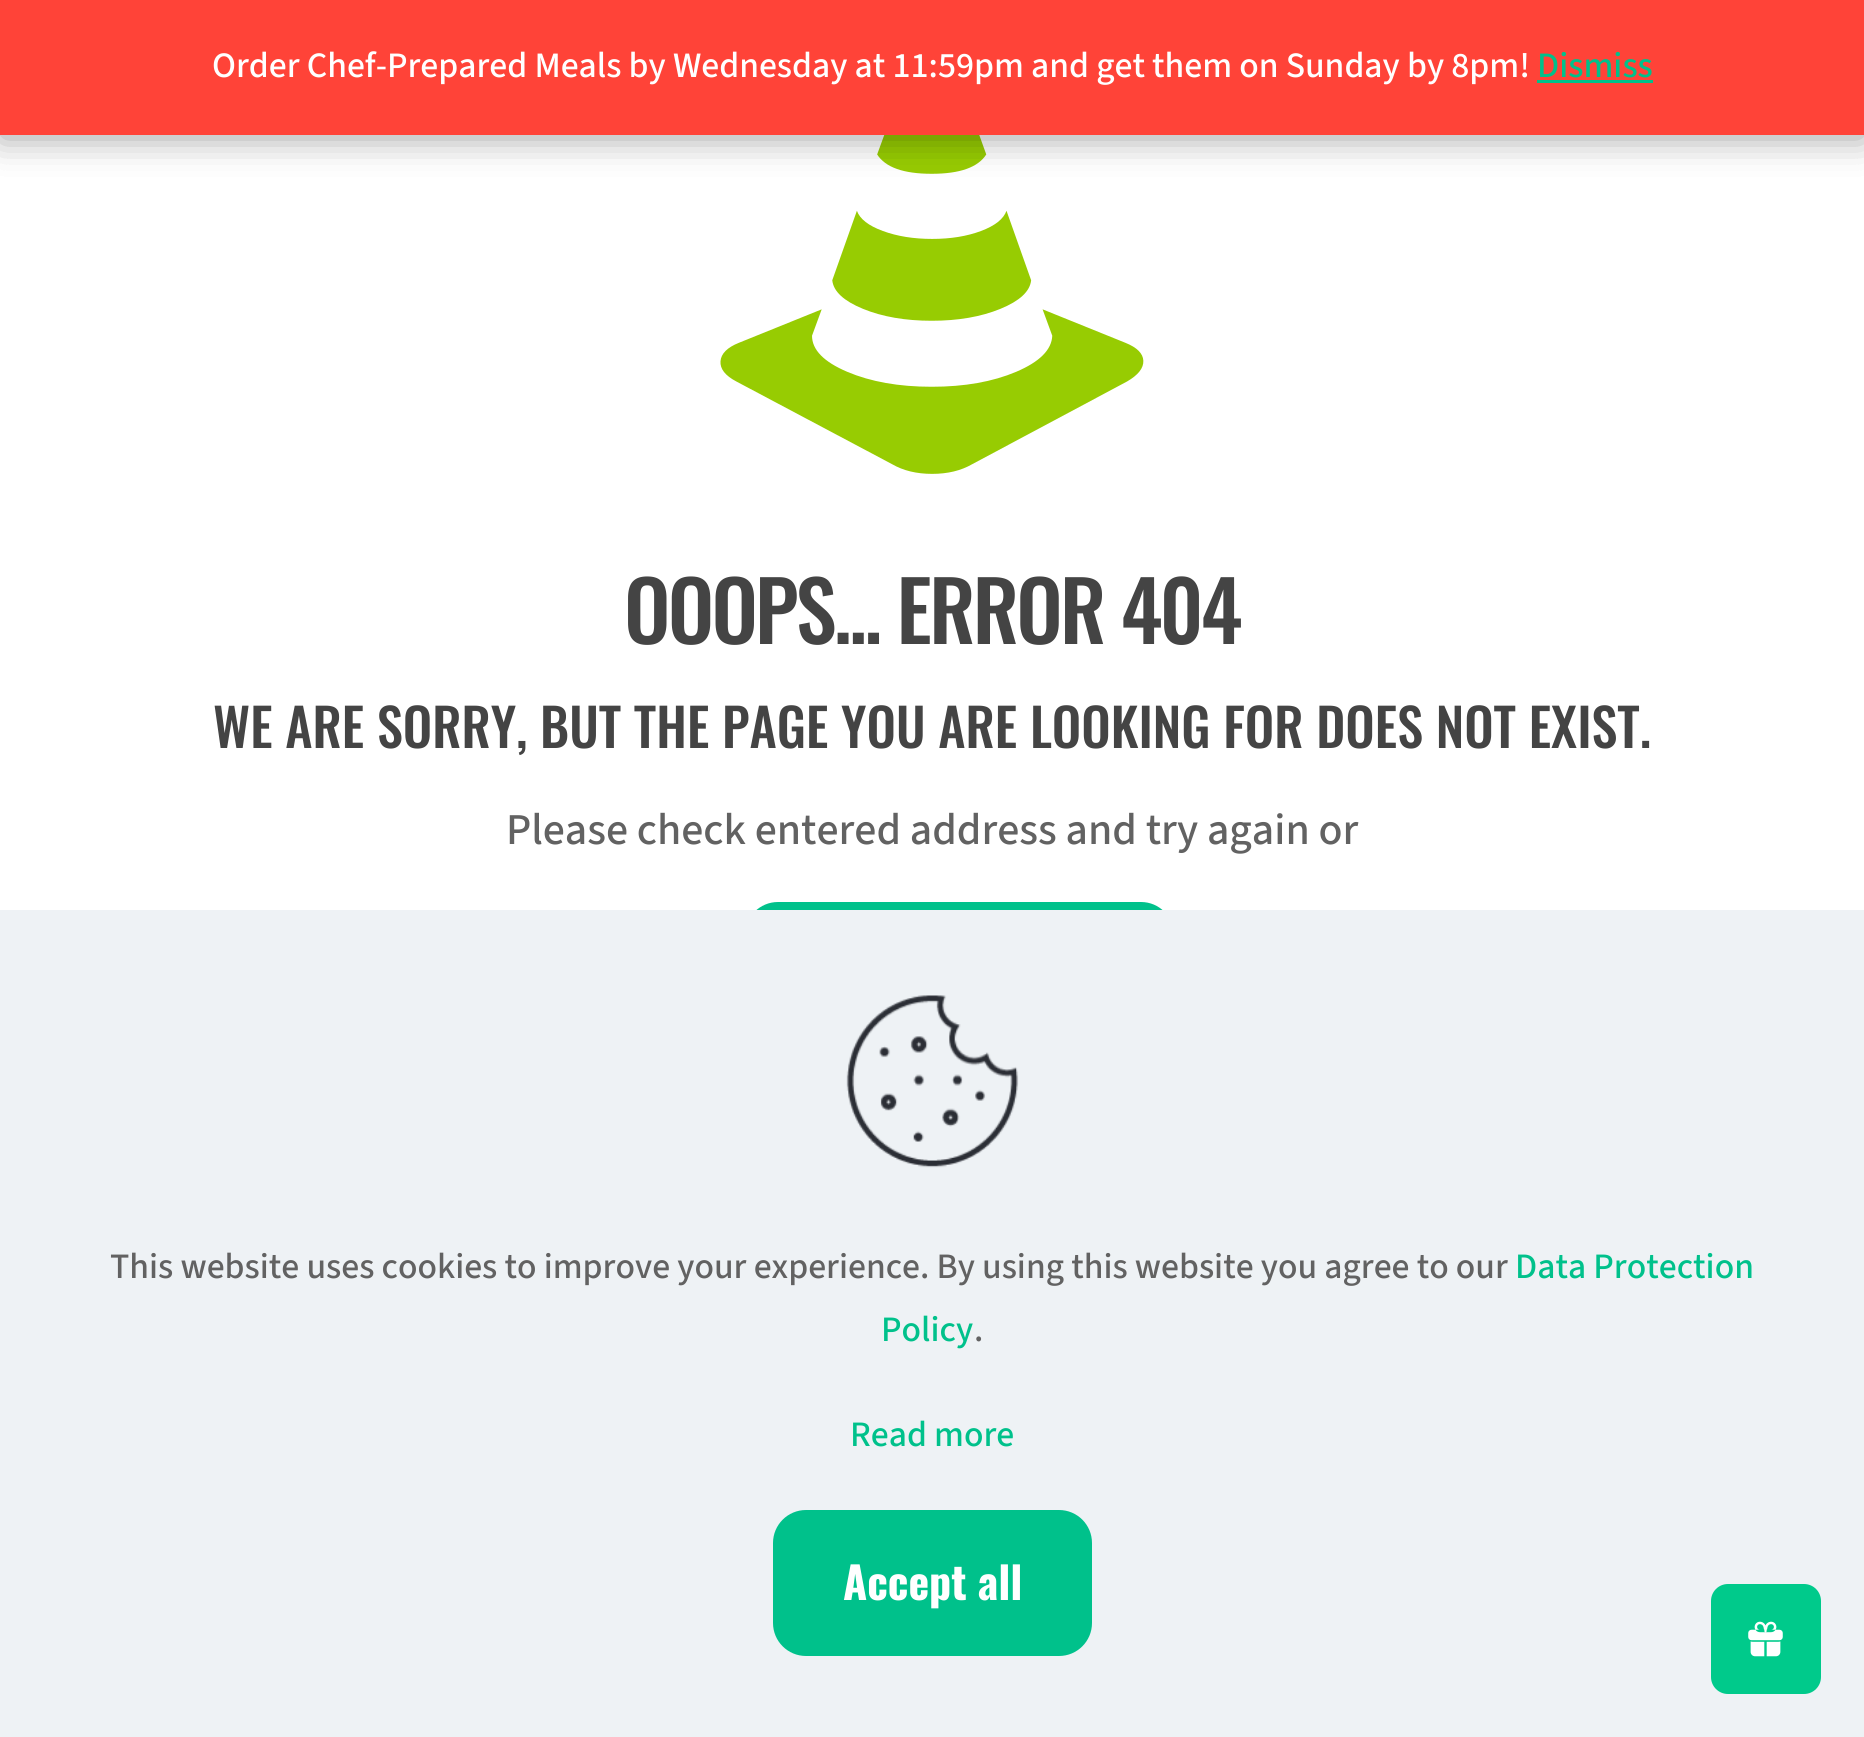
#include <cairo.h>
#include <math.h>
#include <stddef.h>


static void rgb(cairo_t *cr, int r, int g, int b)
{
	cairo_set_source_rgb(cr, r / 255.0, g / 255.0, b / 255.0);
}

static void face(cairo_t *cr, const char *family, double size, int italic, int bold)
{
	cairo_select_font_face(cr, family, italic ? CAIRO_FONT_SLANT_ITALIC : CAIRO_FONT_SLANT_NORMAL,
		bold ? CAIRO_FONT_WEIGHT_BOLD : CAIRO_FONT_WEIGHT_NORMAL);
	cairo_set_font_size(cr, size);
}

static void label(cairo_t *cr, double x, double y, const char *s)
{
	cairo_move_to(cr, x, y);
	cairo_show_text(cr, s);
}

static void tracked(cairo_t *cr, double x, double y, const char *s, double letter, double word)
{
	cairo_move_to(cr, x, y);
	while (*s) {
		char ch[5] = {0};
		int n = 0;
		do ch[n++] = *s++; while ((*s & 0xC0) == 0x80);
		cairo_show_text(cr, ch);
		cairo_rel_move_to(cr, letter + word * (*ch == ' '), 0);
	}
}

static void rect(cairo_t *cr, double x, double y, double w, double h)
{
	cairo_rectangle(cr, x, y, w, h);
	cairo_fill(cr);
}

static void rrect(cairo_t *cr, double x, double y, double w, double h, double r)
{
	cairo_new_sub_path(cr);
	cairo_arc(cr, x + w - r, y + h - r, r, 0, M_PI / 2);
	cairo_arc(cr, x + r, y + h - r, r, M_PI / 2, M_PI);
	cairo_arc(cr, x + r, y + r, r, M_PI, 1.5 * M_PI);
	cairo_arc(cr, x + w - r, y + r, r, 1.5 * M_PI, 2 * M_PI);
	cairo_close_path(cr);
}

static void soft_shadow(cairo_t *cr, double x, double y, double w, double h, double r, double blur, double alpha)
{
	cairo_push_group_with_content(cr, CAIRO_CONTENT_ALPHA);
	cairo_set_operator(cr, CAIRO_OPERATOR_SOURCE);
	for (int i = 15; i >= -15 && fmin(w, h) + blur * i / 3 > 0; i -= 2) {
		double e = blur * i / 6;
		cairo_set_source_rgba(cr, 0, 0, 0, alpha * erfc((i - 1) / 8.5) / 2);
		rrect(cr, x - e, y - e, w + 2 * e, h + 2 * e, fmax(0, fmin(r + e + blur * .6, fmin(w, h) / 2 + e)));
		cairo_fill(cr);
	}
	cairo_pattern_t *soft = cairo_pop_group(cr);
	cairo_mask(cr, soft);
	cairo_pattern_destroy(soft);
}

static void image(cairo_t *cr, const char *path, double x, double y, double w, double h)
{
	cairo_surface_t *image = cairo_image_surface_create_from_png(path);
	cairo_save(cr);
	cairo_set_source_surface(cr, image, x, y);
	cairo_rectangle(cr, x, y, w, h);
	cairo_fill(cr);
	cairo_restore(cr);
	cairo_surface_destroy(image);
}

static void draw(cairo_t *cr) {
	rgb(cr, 255, 255, 255);
	cairo_paint(cr);
	image(cr, "image0.png", 720, 135, 424, 339);
	rgb(cr, 0, 0, 0);
	soft_shadow(cr, 0, 3, 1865, 135, 0, 18, 0.2);
	soft_shadow(cr, 0, 3, 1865, 135, 0, 18, 0.2);
	rgb(cr, 255, 67, 56);
	rect(cr, 0, 0, 1864, 135);
	face(cr, "Source Sans 3 Medium", 35.75, 0, 0);
	rgb(cr, 255, 255, 255);
	label(cr, 212, 77, "Order Chef-Prepared Meals by Wednesday at 11:59pm and get them on Sunday by 8pm!");
	rgb(cr, 0, 193, 139);
	label(cr, 1537, 77, "Dismiss");
	rect(cr, 1537, 80, 116, 3);
	face(cr, "Oswald Medium", 82.5, 0, 0);
	rgb(cr, 68, 68, 68);
	tracked(cr, 624, 644, "OOOPS... ERROR 404", -2.75, 0);
	face(cr, "Oswald Medium", 52.25, 0, 0);
	label(cr, 213, 748, "WE ARE SORRY, BUT THE PAGE YOU ARE LOOKING FOR DOES NOT EXIST.");
	face(cr, "Source Sans 3 Medium", 44, 0, 0);
	rgb(cr, 98, 98, 98);
	label(cr, 506, 844, "Please check entered address and try again or");
	rgb(cr, 0, 193, 139);
	rrect(cr, 748, 905, 423, 159, 30);
	cairo_fill_preserve(cr);
	cairo_set_line_width(cr, 6);
	cairo_stroke(cr);
	rgb(cr, 238, 242, 245);
	rect(cr, 0, 910, 1864, 827);
	image(cr, "image1.png", 846, 995, 173, 173);
	face(cr, "Source Sans 3 Medium", 35.75, 0, 0);
	rgb(cr, 98, 98, 98);
	label(cr, 110, 1278, "This website uses cookies to improve your experience. By using this website you agree to our");
	rgb(cr, 0, 193, 139);
	label(cr, 1515, 1278, "Data Protection");
	label(cr, 881, 1341, "Policy");
	rgb(cr, 98, 98, 98);
	label(cr, 974, 1341, ".");
	rgb(cr, 0, 193, 139);
	label(cr, 850, 1446, "Read more");
	rrect(cr, 773, 1510, 319, 146, 33);
	cairo_fill(cr);
	face(cr, "Oswald", 44, 0, 1);
	rgb(cr, 255, 255, 255);
	label(cr, 843, 1600, "Accept all");
	rgb(cr, 0, 202, 139);
	rrect(cr, 1711, 1584, 110, 110, 17);
	cairo_fill(cr);
	image(cr, "image2.png", 1748, 1621, 35, 36);
}

int main(void) {
	cairo_surface_t *surface = cairo_image_surface_create(CAIRO_FORMAT_RGB24, 1864, 1737);
	cairo_t *cr = cairo_create(surface);
	cairo_font_options_t *options = cairo_font_options_create();
	cairo_font_options_set_hint_metrics(options, CAIRO_HINT_METRICS_OFF);
	cairo_font_options_set_hint_style(options, CAIRO_HINT_STYLE_NONE);
	cairo_set_font_options(cr, options);
	cairo_set_miter_limit(cr, 4);
	draw(cr);
	cairo_surface_write_to_png(surface, "render.png");
	cairo_font_options_destroy(options);
	cairo_destroy(cr);
	cairo_surface_destroy(surface);
	return 0;
}
